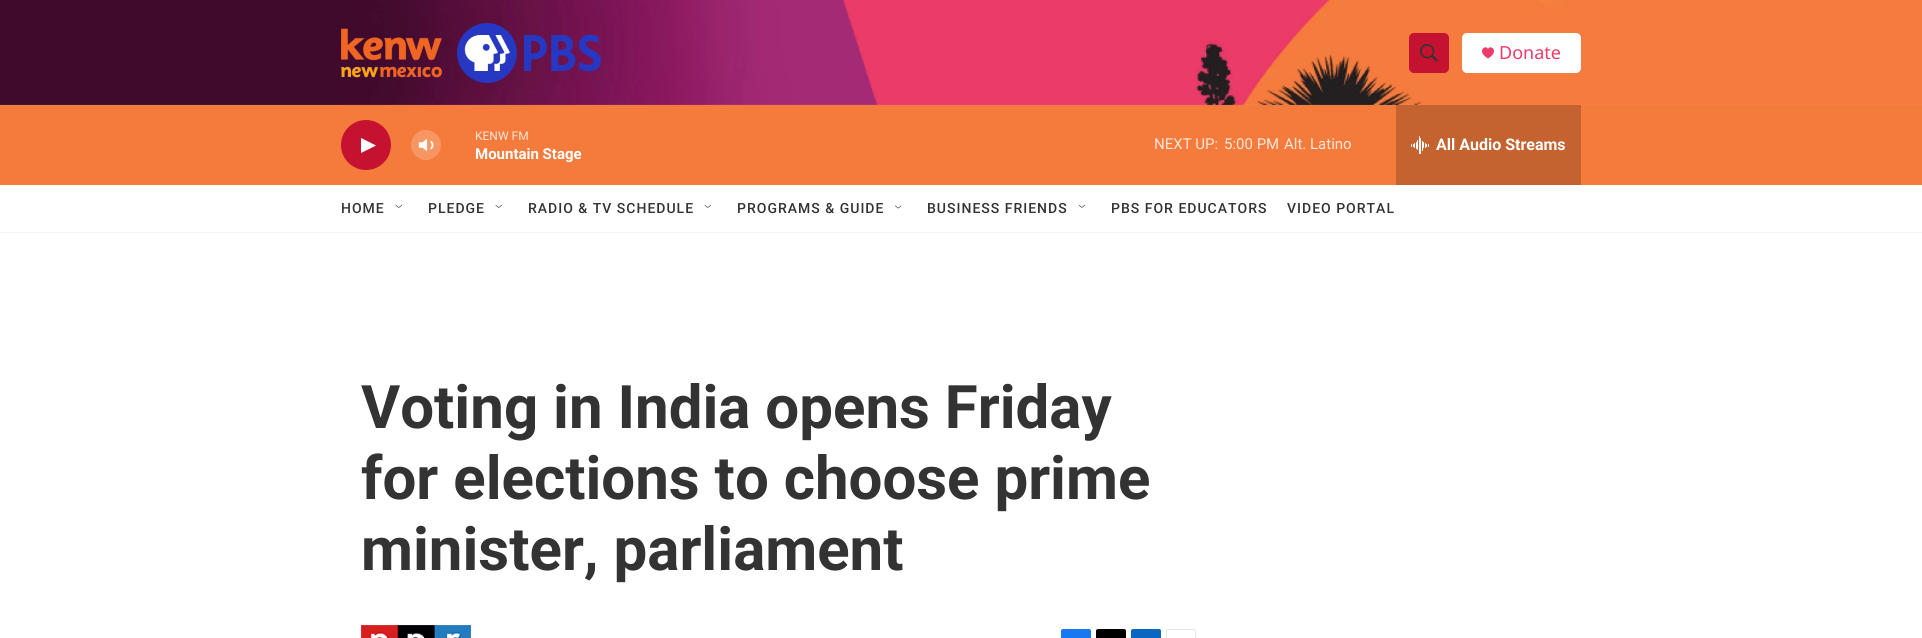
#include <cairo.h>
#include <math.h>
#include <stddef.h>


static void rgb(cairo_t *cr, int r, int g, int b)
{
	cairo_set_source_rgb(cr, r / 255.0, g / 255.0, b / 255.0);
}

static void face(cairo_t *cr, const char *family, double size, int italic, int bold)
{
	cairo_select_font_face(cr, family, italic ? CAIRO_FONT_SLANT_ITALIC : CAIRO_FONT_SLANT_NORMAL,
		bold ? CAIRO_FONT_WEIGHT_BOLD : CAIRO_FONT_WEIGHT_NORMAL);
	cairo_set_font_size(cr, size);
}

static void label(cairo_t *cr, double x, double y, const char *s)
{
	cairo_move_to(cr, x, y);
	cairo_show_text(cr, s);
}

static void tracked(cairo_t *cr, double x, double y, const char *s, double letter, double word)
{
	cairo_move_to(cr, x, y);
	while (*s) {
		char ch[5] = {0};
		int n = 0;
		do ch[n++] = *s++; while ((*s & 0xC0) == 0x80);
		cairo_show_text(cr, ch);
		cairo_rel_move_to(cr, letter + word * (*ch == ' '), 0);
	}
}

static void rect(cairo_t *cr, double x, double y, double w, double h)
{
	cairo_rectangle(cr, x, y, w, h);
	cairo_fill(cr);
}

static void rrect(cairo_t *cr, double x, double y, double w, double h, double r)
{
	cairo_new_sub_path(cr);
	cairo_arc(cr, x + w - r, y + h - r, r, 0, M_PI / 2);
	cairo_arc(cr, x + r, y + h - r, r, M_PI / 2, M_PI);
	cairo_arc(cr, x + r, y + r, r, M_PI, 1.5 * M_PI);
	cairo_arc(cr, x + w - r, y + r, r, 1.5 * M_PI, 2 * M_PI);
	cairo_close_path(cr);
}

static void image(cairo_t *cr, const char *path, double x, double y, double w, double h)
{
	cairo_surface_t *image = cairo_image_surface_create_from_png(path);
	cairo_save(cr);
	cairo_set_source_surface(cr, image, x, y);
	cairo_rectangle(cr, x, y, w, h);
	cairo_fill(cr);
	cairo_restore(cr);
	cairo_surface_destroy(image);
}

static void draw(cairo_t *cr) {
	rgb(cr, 255, 255, 255);
	cairo_paint(cr);
	rgb(cr, 245, 245, 245);
	rect(cr, 0, 232, 1922, 1);
	image(cr, "image0.png", 0, 0, 1922, 105);
	image(cr, "image1.png", 341, 23, 260, 60);
	rgb(cr, 196, 18, 48);
	rrect(cr, 1409, 33, 40, 40, 5);
	cairo_fill(cr);
	image(cr, "image2.png", 1420, 44, 18, 18);
	rgb(cr, 255, 255, 255);
	rrect(cr, 1462, 33, 119, 40, 5);
	cairo_fill(cr);
	rgb(cr, 235, 59, 105);
	cairo_new_path(cr);
	cairo_move_to(cr, 1488, 49);
	cairo_curve_to(cr, 1486, 44, 1475.5, 51, 1488, 58.5);
	cairo_curve_to(cr, 1500.5, 51, 1490, 44, 1488, 49);
	cairo_close_path(cr);
	cairo_fill(cr);
	face(cr, "Noto Sans", 18, 0, 0);
	label(cr, 1499, 59, "Donate");
	rgb(cr, 245, 123, 60);
	rect(cr, 0, 105, 1922, 80);
	rgb(cr, 196, 18, 48);
	cairo_new_path(cr);
	cairo_arc(cr, 366, 145, 25, 0, 2 * M_PI);
	cairo_fill(cr);
	rgb(cr, 255, 255, 255);
	cairo_new_path(cr);
	cairo_move_to(cr, 361, 138);
	cairo_line_to(cr, 376, 145.5);
	cairo_line_to(cr, 361, 153);
	cairo_close_path(cr);
	cairo_fill(cr);
	image(cr, "image3.png", 418, 138, 16, 14);
	cairo_set_source_rgba(cr, 1, 1, 1, 0.2);
	cairo_arc(cr, 426, 145, 15, 0, 2 * M_PI);
	cairo_fill(cr);
	face(cr, "Roboto", 12, 0, 0);
	rgb(cr, 253, 229, 216);
	label(cr, 475, 140, "KENW FM");
	face(cr, "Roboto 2", 15, 0, 1);
	rgb(cr, 255, 255, 255);
	label(cr, 475, 159, "Mountain Stage");
	face(cr, "Roboto", 15, 0, 0);
	rgb(cr, 253, 229, 216);
	label(cr, 1154, 149, "NEXT UP:");
	label(cr, 1224, 149, "5:00 PM");
	label(cr, 1284, 149, "Alt. Latino");
	rgb(cr, 196, 98, 48);
	rect(cr, 1396, 105, 185, 80);
	image(cr, "image4.png", 1411, 136, 18, 18);
	face(cr, "Roboto 2", 16, 0, 1);
	rgb(cr, 255, 255, 255);
	label(cr, 1436, 150, "All Audio Streams");
	face(cr, "Roboto Medium", 14, 0, 0);
	rgb(cr, 51, 51, 51);
	tracked(cr, 341, 213, "HOME", 1, 0);
	image(cr, "image5.png", 395, 204, 7, 4);
	tracked(cr, 428, 213, "PLEDGE", 1, 0);
	image(cr, "image5.png", 495, 204, 7, 4);
	tracked(cr, 528, 213, "RADIO & TV SCHEDULE", 1, 0);
	image(cr, "image6.png", 704, 204, 7, 4);
	tracked(cr, 737, 213, "PROGRAMS & GUIDE", 1, 0);
	image(cr, "image7.png", 895, 205, 7, 4);
	tracked(cr, 927, 213, "BUSINESS FRIENDS", 1, 0);
	image(cr, "image8.png", 1078, 204, 7, 4);
	tracked(cr, 1111, 213, "PBS FOR EDUCATORS", 1, 0);
	tracked(cr, 1287, 213, "VIDEO PORTAL", 1, 0);
	face(cr, "Roboto", 60, 0, 1);
	label(cr, 361, 428, "Voting in India opens Friday");
	label(cr, 361, 499, "for elections to choose prime");
	label(cr, 361, 570, "minister, parliament");
	image(cr, "image9.png", 361, 625, 110, 13);
	rgb(cr, 23, 120, 242);
	rrect(cr, 1061, 629, 30, 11, 2);
	cairo_fill(cr);
	rgb(cr, 0, 0, 0);
	rrect(cr, 1096, 629, 30, 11, 2);
	cairo_fill(cr);
	rgb(cr, 10, 102, 193);
	rrect(cr, 1131, 629, 30, 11, 2);
	cairo_fill(cr);
	rrect(cr, 1166.5, 629.5, 29, 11, 1.5);
	rgb(cr, 230, 230, 230);
	cairo_set_line_width(cr, 1);
	cairo_stroke(cr);
}

int main(void) {
	cairo_surface_t *surface = cairo_image_surface_create(CAIRO_FORMAT_RGB24, 1922, 638);
	cairo_t *cr = cairo_create(surface);
	cairo_font_options_t *options = cairo_font_options_create();
	cairo_font_options_set_hint_metrics(options, CAIRO_HINT_METRICS_OFF);
	cairo_font_options_set_hint_style(options, CAIRO_HINT_STYLE_NONE);
	cairo_set_font_options(cr, options);
	cairo_set_miter_limit(cr, 4);
	draw(cr);
	cairo_surface_write_to_png(surface, "render.png");
	cairo_font_options_destroy(options);
	cairo_destroy(cr);
	cairo_surface_destroy(surface);
	return 0;
}
